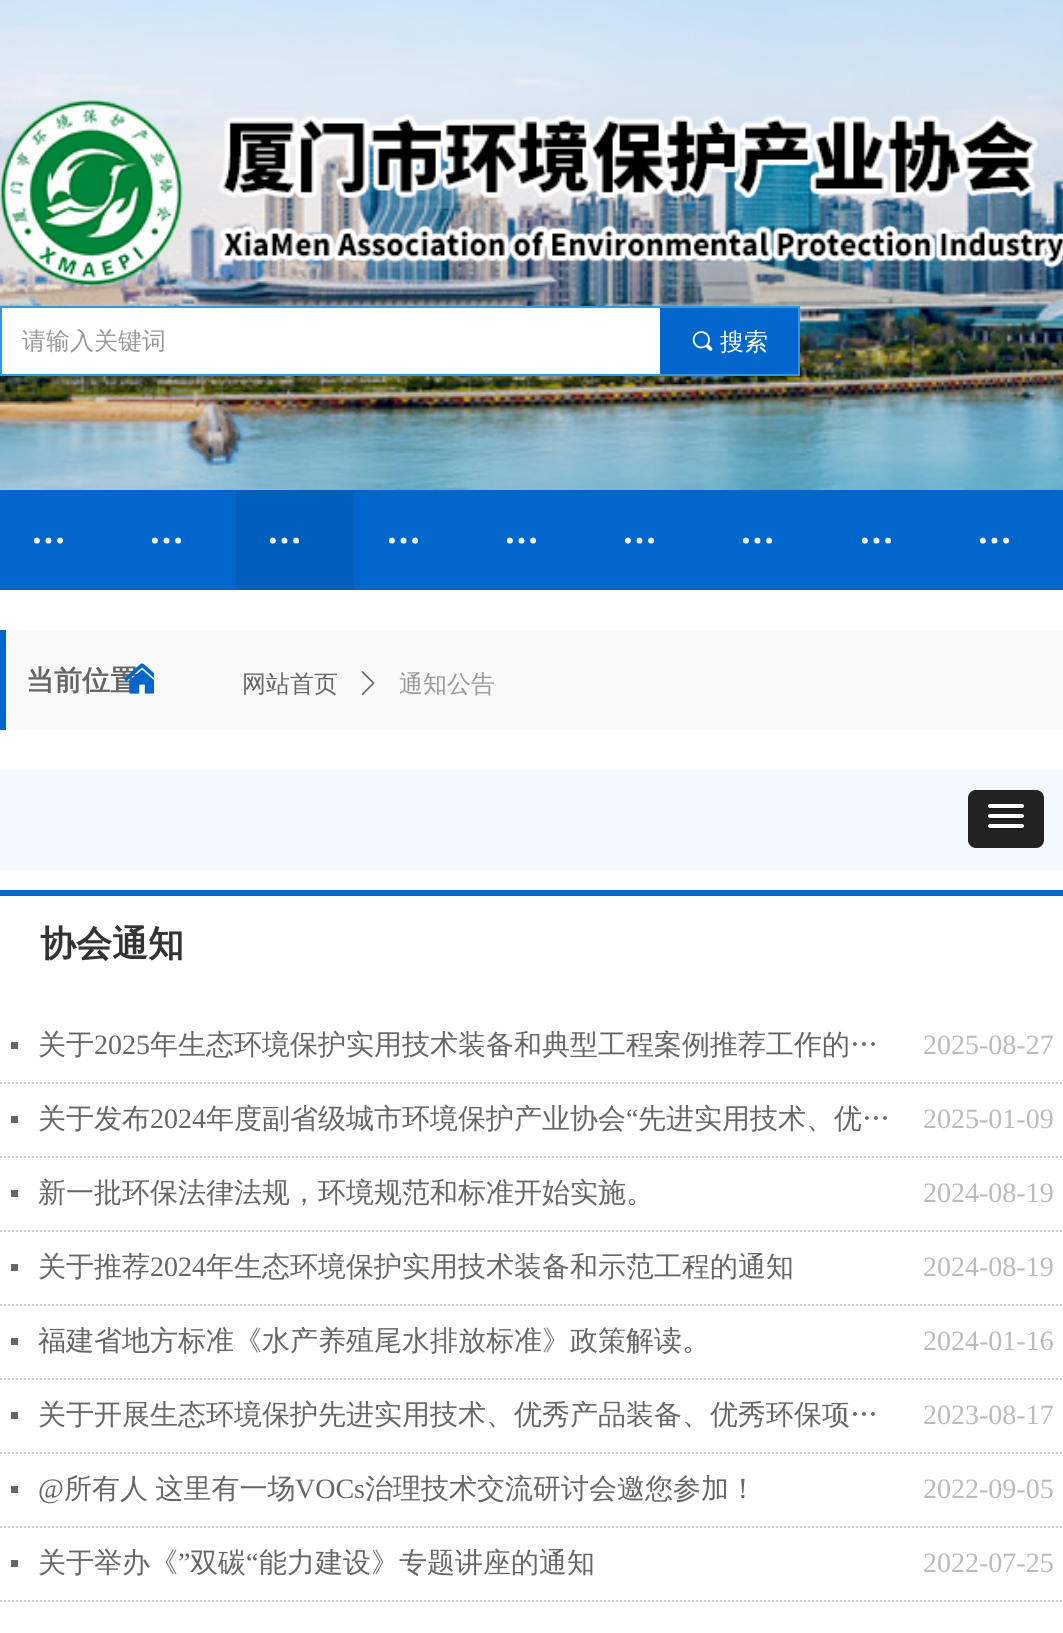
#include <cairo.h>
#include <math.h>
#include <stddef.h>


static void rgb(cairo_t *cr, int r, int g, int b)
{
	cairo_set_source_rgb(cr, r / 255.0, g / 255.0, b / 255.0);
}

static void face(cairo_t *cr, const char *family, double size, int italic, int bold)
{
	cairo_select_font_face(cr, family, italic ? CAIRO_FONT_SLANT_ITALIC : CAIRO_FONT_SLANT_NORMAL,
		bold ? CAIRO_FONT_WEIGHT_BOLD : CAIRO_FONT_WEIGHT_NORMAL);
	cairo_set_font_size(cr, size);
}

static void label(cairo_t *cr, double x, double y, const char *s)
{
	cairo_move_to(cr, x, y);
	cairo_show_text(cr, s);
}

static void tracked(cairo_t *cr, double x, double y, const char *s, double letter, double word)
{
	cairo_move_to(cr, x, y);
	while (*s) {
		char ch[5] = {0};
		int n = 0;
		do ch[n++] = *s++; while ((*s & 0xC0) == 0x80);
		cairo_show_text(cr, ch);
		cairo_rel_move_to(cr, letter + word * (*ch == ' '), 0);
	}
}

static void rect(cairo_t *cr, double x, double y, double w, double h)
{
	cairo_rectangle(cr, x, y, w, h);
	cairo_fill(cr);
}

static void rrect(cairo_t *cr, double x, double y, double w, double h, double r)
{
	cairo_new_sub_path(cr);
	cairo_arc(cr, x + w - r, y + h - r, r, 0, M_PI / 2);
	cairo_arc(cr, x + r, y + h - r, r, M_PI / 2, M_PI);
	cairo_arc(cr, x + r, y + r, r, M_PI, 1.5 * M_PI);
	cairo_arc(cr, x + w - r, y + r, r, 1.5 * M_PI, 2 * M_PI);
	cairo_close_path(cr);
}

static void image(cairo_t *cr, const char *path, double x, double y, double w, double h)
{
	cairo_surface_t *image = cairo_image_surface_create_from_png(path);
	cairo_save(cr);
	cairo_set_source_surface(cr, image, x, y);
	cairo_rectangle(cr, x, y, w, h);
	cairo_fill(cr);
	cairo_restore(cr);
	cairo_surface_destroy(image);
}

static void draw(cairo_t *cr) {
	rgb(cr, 255, 255, 255);
	cairo_paint(cr);
	image(cr, "image0.png", 0, 0, 1063, 490);
	image(cr, "image1.png", 0, 100, 1063, 186);
	cairo_rectangle(cr, 1, 307, 798, 68);
	rgb(cr, 48, 153, 221);
	cairo_stroke(cr);
	rgb(cr, 255, 255, 255);
	rect(cr, 2, 308, 658, 66);
	face(cr, "WenQuanYi Zen Hei Medium", 24, 0, 0);
	rgb(cr, 153, 153, 153);
	label(cr, 22, 349, "请输入关键词");
	rgb(cr, 1, 103, 204);
	rect(cr, 660, 308, 138, 66);
	image(cr, "image2.png", 692, 331, 21, 20);
	rgb(cr, 255, 255, 255);
	label(cr, 720, 350, "搜索");
	rgb(cr, 1, 103, 204);
	rect(cr, 0, 490, 1063, 100);
	face(cr, "WenQuanYi Zen Hei", 36, 0, 1);
	rgb(cr, 255, 255, 255);
	label(cr, 30, 554, "…");
	label(cr, 148, 554, "…");
	rgb(cr, 0, 95, 189);
	rect(cr, 236, 490, 118, 100);
	rgb(cr, 255, 255, 255);
	label(cr, 266, 554, "…");
	label(cr, 385, 554, "…");
	label(cr, 503, 554, "…");
	label(cr, 621, 554, "…");
	label(cr, 739, 554, "…");
	label(cr, 858, 554, "…");
	label(cr, 976, 554, "…");
	rgb(cr, 249, 249, 249);
	rect(cr, 6, 630, 1057, 100);
	rgb(cr, 1, 103, 204);
	rect(cr, 0, 630, 6, 100);
	face(cr, "WenQuanYi Zen Hei", 28, 0, 1);
	rgb(cr, 102, 102, 102);
	label(cr, 26, 690, "当前位置");
	image(cr, "image3.png", 124, 663, 30, 31);
	face(cr, "WenQuanYi Zen Hei Medium", 24, 0, 0);
	label(cr, 242, 692, "网站首页");
	image(cr, "image4.png", 361, 671, 14, 24);
	rgb(cr, 153, 153, 153);
	label(cr, 399, 692, "通知公告");
	rgb(cr, 242, 248, 253);
	rect(cr, 0, 770, 1063, 100);
	rgb(cr, 34, 34, 34);
	rrect(cr, 968, 790, 76, 58, 8);
	cairo_fill(cr);
	rgb(cr, 26, 26, 26);
	cairo_new_path(cr);
	cairo_move_to(cr, 988.5, 807);
	cairo_curve_to(cr, 986, 811, 995, 810, 995.5, 810);
	cairo_line_to(cr, 1016.5, 810);
	cairo_curve_to(cr, 1017, 810, 1026, 811, 1023.5, 807);
	cairo_curve_to(cr, 1023.5, 807.5, 1022.5, 808, 1022, 808);
	cairo_line_to(cr, 990, 808);
	cairo_curve_to(cr, 989.5, 808, 988.5, 807.5, 988.5, 807);
	cairo_close_path(cr);
	cairo_fill(cr);
	rgb(cr, 255, 255, 255);
	rrect(cr, 988, 804, 36, 4, 2);
	cairo_fill(cr);
	rgb(cr, 26, 26, 26);
	cairo_new_path(cr);
	cairo_move_to(cr, 988.5, 817);
	cairo_curve_to(cr, 986, 821, 995, 820, 995.5, 820);
	cairo_line_to(cr, 1016.5, 820);
	cairo_curve_to(cr, 1017, 820, 1026, 821, 1023.5, 817);
	cairo_curve_to(cr, 1023.5, 817.5, 1022.5, 818, 1022, 818);
	cairo_line_to(cr, 990, 818);
	cairo_curve_to(cr, 989.5, 818, 988.5, 817.5, 988.5, 817);
	cairo_close_path(cr);
	cairo_fill(cr);
	rgb(cr, 255, 255, 255);
	rrect(cr, 988, 814, 36, 4, 2);
	cairo_fill(cr);
	rgb(cr, 26, 26, 26);
	cairo_new_path(cr);
	cairo_move_to(cr, 988.5, 827);
	cairo_curve_to(cr, 986, 831, 995, 830, 995.5, 830);
	cairo_line_to(cr, 1016.5, 830);
	cairo_curve_to(cr, 1017, 830, 1026, 831, 1023.5, 827);
	cairo_curve_to(cr, 1023.5, 827.5, 1022.5, 828, 1022, 828);
	cairo_line_to(cr, 990, 828);
	cairo_curve_to(cr, 989.5, 828, 988.5, 827.5, 988.5, 827);
	cairo_close_path(cr);
	cairo_fill(cr);
	rgb(cr, 255, 255, 255);
	rrect(cr, 988, 824, 36, 4, 2);
	cairo_fill(cr);
	rgb(cr, 1, 103, 204);
	rect(cr, 0, 890, 1063, 6);
	face(cr, "WenQuanYi Zen Hei", 36, 0, 1);
	rgb(cr, 51, 51, 51);
	label(cr, 40, 956, "协会通知");
	cairo_new_path(cr);
	cairo_move_to(cr, 0, 1083);
	cairo_line_to(cr, 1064, 1083);
	rgb(cr, 204, 204, 204);
	cairo_set_dash(cr, (double[]){2, 2}, 2, 0);
	cairo_stroke(cr);
	rgb(cr, 102, 102, 102);
	rect(cr, 11, 1042, 7, 7);
	face(cr, "WenQuanYi Zen Hei Medium", 28, 0, 0);
	label(cr, 38, 1054, "关于");
	face(cr, "Liberation Serif", 28, 0, 0);
	label(cr, 94, 1054, "2025");
	face(cr, "WenQuanYi Zen Hei Medium", 28, 0, 0);
	label(cr, 150, 1054, "年生态环境保护实用技术装备和典型工程案例推荐工作的…");
	face(cr, "Liberation Serif", 28, 0, 0);
	rgb(cr, 187, 187, 187);
	label(cr, 923, 1054, "2025-08-27");
	cairo_new_path(cr);
	cairo_move_to(cr, 0, 1157);
	cairo_line_to(cr, 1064, 1157);
	rgb(cr, 204, 204, 204);
	cairo_stroke(cr);
	rgb(cr, 102, 102, 102);
	rect(cr, 11, 1116, 7, 7);
	face(cr, "WenQuanYi Zen Hei Medium", 28, 0, 0);
	label(cr, 38, 1128, "关于发布");
	face(cr, "Liberation Serif", 28, 0, 0);
	label(cr, 150, 1128, "2024");
	face(cr, "WenQuanYi Zen Hei Medium", 28, 0, 0);
	label(cr, 206, 1128, "年度副省级城市环境保护产业协会");
	face(cr, "Liberation Serif", 28, 0, 0);
	label(cr, 626, 1128, "“");
	face(cr, "WenQuanYi Zen Hei Medium", 28, 0, 0);
	label(cr, 638, 1128, "先进实用技术、优…");
	face(cr, "Liberation Serif", 28, 0, 0);
	rgb(cr, 187, 187, 187);
	label(cr, 923, 1128, "2025-01-09");
	cairo_new_path(cr);
	cairo_move_to(cr, 0, 1231);
	cairo_line_to(cr, 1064, 1231);
	rgb(cr, 204, 204, 204);
	cairo_stroke(cr);
	rgb(cr, 102, 102, 102);
	rect(cr, 11, 1190, 7, 7);
	face(cr, "WenQuanYi Zen Hei Medium", 28, 0, 0);
	label(cr, 38, 1202, "新一批环保法律法规，环境规范和标准开始实施。");
	face(cr, "Liberation Serif", 28, 0, 0);
	rgb(cr, 187, 187, 187);
	label(cr, 923, 1202, "2024-08-19");
	cairo_new_path(cr);
	cairo_move_to(cr, 0, 1305);
	cairo_line_to(cr, 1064, 1305);
	rgb(cr, 204, 204, 204);
	cairo_stroke(cr);
	rgb(cr, 102, 102, 102);
	rect(cr, 11, 1264, 7, 7);
	face(cr, "WenQuanYi Zen Hei Medium", 28, 0, 0);
	label(cr, 38, 1276, "关于推荐");
	face(cr, "Liberation Serif", 28, 0, 0);
	label(cr, 150, 1276, "2024");
	face(cr, "WenQuanYi Zen Hei Medium", 28, 0, 0);
	label(cr, 206, 1276, "年生态环境保护实用技术装备和示范工程的通知");
	face(cr, "Liberation Serif", 28, 0, 0);
	rgb(cr, 187, 187, 187);
	label(cr, 923, 1276, "2024-08-19");
	cairo_new_path(cr);
	cairo_move_to(cr, 0, 1379);
	cairo_line_to(cr, 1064, 1379);
	rgb(cr, 204, 204, 204);
	cairo_stroke(cr);
	rgb(cr, 102, 102, 102);
	rect(cr, 11, 1338, 7, 7);
	face(cr, "WenQuanYi Zen Hei Medium", 28, 0, 0);
	label(cr, 38, 1350, "福建省地方标准《水产养殖尾水排放标准》政策解读。");
	face(cr, "Liberation Serif", 28, 0, 0);
	rgb(cr, 187, 187, 187);
	label(cr, 923, 1350, "2024-01-16");
	cairo_new_path(cr);
	cairo_move_to(cr, 0, 1453);
	cairo_line_to(cr, 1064, 1453);
	rgb(cr, 204, 204, 204);
	cairo_stroke(cr);
	rgb(cr, 102, 102, 102);
	rect(cr, 11, 1412, 7, 7);
	face(cr, "WenQuanYi Zen Hei Medium", 28, 0, 0);
	label(cr, 38, 1424, "关于开展生态环境保护先进实用技术、优秀产品装备、优秀环保项…");
	face(cr, "Liberation Serif", 28, 0, 0);
	rgb(cr, 187, 187, 187);
	label(cr, 923, 1424, "2023-08-17");
	cairo_new_path(cr);
	cairo_move_to(cr, 0, 1527);
	cairo_line_to(cr, 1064, 1527);
	rgb(cr, 204, 204, 204);
	cairo_stroke(cr);
	rgb(cr, 102, 102, 102);
	rect(cr, 11, 1486, 7, 7);
	label(cr, 38, 1498, "@");
	face(cr, "WenQuanYi Zen Hei Medium", 28, 0, 0);
	tracked(cr, 64, 1498, "所有人 这里有一场", 0, -1);
	face(cr, "Liberation Serif", 28, 0, 0);
	label(cr, 295, 1498, "VOCs");
	face(cr, "WenQuanYi Zen Hei Medium", 28, 0, 0);
	label(cr, 365, 1498, "治理技术交流研讨会邀您参加！");
	face(cr, "Liberation Serif", 28, 0, 0);
	rgb(cr, 187, 187, 187);
	label(cr, 923, 1498, "2022-09-05");
	cairo_new_path(cr);
	cairo_move_to(cr, 0, 1601);
	cairo_line_to(cr, 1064, 1601);
	rgb(cr, 204, 204, 204);
	cairo_stroke(cr);
	rgb(cr, 102, 102, 102);
	rect(cr, 11, 1560, 7, 7);
	face(cr, "WenQuanYi Zen Hei Medium", 28, 0, 0);
	label(cr, 38, 1572, "关于举办《");
	face(cr, "Liberation Serif", 28, 0, 0);
	label(cr, 178, 1572, "”");
	face(cr, "WenQuanYi Zen Hei Medium", 28, 0, 0);
	label(cr, 190, 1572, "双碳");
	face(cr, "Liberation Serif", 28, 0, 0);
	label(cr, 246, 1572, "“");
	face(cr, "WenQuanYi Zen Hei Medium", 28, 0, 0);
	label(cr, 259, 1572, "能力建设》专题讲座的通知");
	face(cr, "Liberation Serif", 28, 0, 0);
	rgb(cr, 187, 187, 187);
	label(cr, 923, 1572, "2022-07-25");
}

int main(void) {
	cairo_surface_t *surface = cairo_image_surface_create(CAIRO_FORMAT_RGB24, 1063, 1633);
	cairo_t *cr = cairo_create(surface);
	cairo_font_options_t *options = cairo_font_options_create();
	cairo_font_options_set_hint_metrics(options, CAIRO_HINT_METRICS_OFF);
	cairo_font_options_set_hint_style(options, CAIRO_HINT_STYLE_NONE);
	cairo_set_font_options(cr, options);
	cairo_set_miter_limit(cr, 4);
	draw(cr);
	cairo_surface_write_to_png(surface, "render.png");
	cairo_font_options_destroy(options);
	cairo_destroy(cr);
	cairo_surface_destroy(surface);
	return 0;
}
